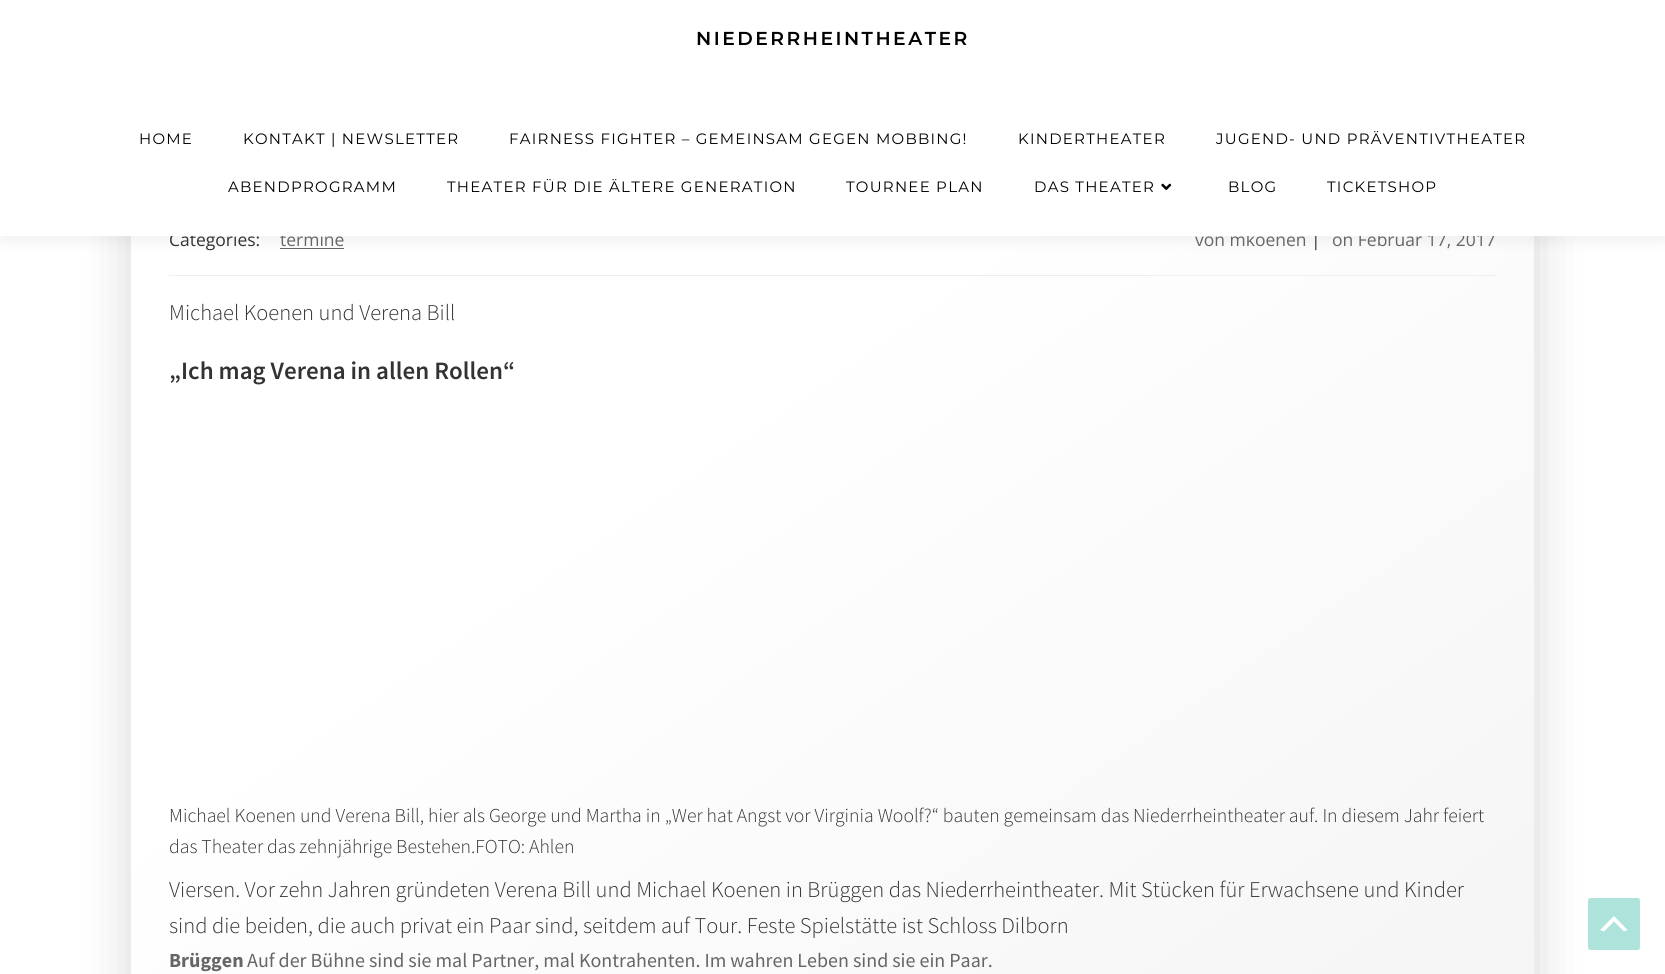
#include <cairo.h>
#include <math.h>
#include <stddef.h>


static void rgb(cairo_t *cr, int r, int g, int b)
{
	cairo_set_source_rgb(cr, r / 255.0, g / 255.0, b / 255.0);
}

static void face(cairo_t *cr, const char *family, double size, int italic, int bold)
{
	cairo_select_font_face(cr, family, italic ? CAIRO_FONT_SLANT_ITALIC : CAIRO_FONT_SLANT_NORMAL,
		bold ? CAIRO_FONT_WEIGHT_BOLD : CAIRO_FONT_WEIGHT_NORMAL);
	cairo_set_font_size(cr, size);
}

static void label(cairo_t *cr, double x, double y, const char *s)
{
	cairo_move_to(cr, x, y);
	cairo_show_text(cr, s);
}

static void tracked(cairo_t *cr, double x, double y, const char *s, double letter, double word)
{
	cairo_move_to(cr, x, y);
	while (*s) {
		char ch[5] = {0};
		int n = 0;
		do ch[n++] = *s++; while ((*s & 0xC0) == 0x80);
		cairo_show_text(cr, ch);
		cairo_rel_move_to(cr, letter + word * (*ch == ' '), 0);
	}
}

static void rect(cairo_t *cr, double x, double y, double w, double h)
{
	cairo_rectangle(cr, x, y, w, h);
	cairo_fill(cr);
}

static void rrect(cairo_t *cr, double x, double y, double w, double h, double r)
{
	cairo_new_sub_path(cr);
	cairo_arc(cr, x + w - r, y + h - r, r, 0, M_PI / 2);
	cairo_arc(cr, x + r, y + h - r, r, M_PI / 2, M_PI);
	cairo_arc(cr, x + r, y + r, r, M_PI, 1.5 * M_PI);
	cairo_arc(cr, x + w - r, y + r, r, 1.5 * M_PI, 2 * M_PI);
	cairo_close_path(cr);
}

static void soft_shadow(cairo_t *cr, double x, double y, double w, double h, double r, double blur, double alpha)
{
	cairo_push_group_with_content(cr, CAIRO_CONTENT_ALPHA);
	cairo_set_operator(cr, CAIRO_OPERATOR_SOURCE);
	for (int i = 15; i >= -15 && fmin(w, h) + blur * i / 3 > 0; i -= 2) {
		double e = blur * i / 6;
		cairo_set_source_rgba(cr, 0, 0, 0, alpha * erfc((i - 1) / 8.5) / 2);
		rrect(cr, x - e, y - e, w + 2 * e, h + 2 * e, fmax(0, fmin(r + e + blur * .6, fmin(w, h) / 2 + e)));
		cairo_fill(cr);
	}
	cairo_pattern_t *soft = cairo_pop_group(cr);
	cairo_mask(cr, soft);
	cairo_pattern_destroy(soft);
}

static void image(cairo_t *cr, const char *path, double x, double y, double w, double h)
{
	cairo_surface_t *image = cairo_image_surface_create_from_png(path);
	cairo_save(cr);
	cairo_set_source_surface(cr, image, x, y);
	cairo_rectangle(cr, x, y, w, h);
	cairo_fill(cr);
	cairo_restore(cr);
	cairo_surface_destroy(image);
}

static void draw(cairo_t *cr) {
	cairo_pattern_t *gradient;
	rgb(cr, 255, 255, 255);
	cairo_paint(cr);
	rgb(cr, 0, 0, 0);
	soft_shadow(cr, 129, -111, 1407, 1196, 36, 25, 0.15);
	gradient = cairo_pattern_create_linear(272, -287, 1393, 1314);
	cairo_pattern_add_color_stop_rgba(gradient, 0.42, 1, 1, 1, 1);
	cairo_pattern_add_color_stop_rgba(gradient, 1, 0.953, 0.953, 0.953, 1);
	cairo_set_source(cr, gradient);
	cairo_pattern_destroy(gradient);
	rect(cr, 131, 236, 1403, 738);
	rgb(cr, 102, 102, 102);
	rect(cr, 280, 248, 64, 1);
	rgb(cr, 0, 0, 0);
	soft_shadow(cr, 0, 6, 1665, 237, 0, 6, 0.05);
	face(cr, "Open Sans", 17.5, 0, 0);
	rgb(cr, 51, 51, 51);
	label(cr, 169, 246, "Categories:");
	rgb(cr, 102, 102, 102);
	label(cr, 280, 246, "termine");
	label(cr, 1195, 246, "von mkoenen");
	rgb(cr, 51, 51, 51);
	label(cr, 1311, 246, "|");
	rgb(cr, 102, 102, 102);
	label(cr, 1332, 246, "on Februar 17, 2017");
	rgb(cr, 255, 255, 255);
	rect(cr, 0, 0, 1665, 236);
	face(cr, "Montserrat SemiBold", 18.75, 0, 0);
	rgb(cr, 0, 0, 0);
	tracked(cr, 696, 45, "NIEDERRHEINTHEATER", 2.5, 0);
	face(cr, "Montserrat", 15, 0, 0);
	tracked(cr, 139, 144, "HOME", 1.25, 0);
	tracked(cr, 243, 144, "KONTAKT | NEWSLETTER", 1.25, 0);
	tracked(cr, 509, 144, "FAIRNESS FIGHTER – GEMEINSAM GEGEN MOBBING!", 1.25, 0);
	tracked(cr, 1018, 144, "KINDERTHEATER", 1.25, 0);
	tracked(cr, 1216, 144, "JUGEND- UND PRÄVENTIVTHEATER", 1.25, 0);
	tracked(cr, 228, 192, "ABENDPROGRAMM", 1.25, 0);
	tracked(cr, 447, 192, "THEATER FÜR DIE ÄLTERE GENERATION", 1.25, 0);
	tracked(cr, 846, 192, "TOURNEE PLAN", 1.25, 0);
	tracked(cr, 1034, 192, "DAS THEATER", 1.25, 0);
	image(cr, "image0.png", 1161, 183, 11, 8);
	tracked(cr, 1228, 192, "BLOG", 1.25, 0);
	tracked(cr, 1327, 192, "TICKETSHOP", 1.25, 0);
	rgb(cr, 238, 238, 238);
	rect(cr, 169, 275, 1327, 1);
	face(cr, "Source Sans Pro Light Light", 22.5, 0, 0);
	rgb(cr, 51, 51, 51);
	label(cr, 169, 320, "Michael Koenen und Verena Bill");
	face(cr, "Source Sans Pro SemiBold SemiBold", 25, 0, 0);
	label(cr, 169, 379, "„Ich mag Verena in allen Rollen“");
	face(cr, "Source Sans Pro Light Light", 19.7, 0, 0);
	label(cr, 169, 822, "Michael Koenen und Verena Bill, hier als George und Martha in „Wer hat Angst vor Virginia Woolf?“ bauten gemeinsam das Niederrheintheater auf. In diesem Jahr feiert");
	label(cr, 169, 853, "das Theater das zehnjährige Bestehen.FOTO: Ahlen");
	face(cr, "Source Sans Pro Light Light", 22.5, 0, 0);
	label(cr, 169, 897, "Viersen. Vor zehn Jahren gründeten Verena Bill und Michael Koenen in Brüggen das Niederrheintheater. Mit Stücken für Erwachsene und Kinder");
	label(cr, 169, 933, "sind die beiden, die auch privat ein Paar sind, seitdem auf Tour. Feste Spielstätte ist Schloss Dilborn");
	face(cr, "Source Sans Pro", 20, 0, 1);
	rgb(cr, 102, 102, 102);
	label(cr, 169, 967, "Brüggen");
	face(cr, "Source Sans Pro", 20, 0, 0);
	label(cr, 247, 967, "Auf der Bühne sind sie mal Partner, mal Kontrahenten. Im wahren Leben sind sie ein Paar.");
	rgb(cr, 174, 227, 219);
	rrect(cr, 1588, 898, 52, 52, 2.5);
	cairo_fill(cr);
	rgb(cr, 255, 255, 255);
	cairo_new_path(cr);
	cairo_move_to(cr, 1624, 931.5);
	cairo_line_to(cr, 1614, 921.5);
	cairo_line_to(cr, 1604, 931.5);
	cairo_line_to(cr, 1600, 930);
	cairo_line_to(cr, 1614, 916);
	cairo_line_to(cr, 1627.5, 930);
	cairo_close_path(cr);
	cairo_fill(cr);
}

int main(void) {
	cairo_surface_t *surface = cairo_image_surface_create(CAIRO_FORMAT_RGB24, 1665, 974);
	cairo_t *cr = cairo_create(surface);
	cairo_font_options_t *options = cairo_font_options_create();
	cairo_font_options_set_hint_metrics(options, CAIRO_HINT_METRICS_OFF);
	cairo_font_options_set_hint_style(options, CAIRO_HINT_STYLE_NONE);
	cairo_set_font_options(cr, options);
	cairo_set_miter_limit(cr, 4);
	draw(cr);
	cairo_surface_write_to_png(surface, "render.png");
	cairo_font_options_destroy(options);
	cairo_destroy(cr);
	cairo_surface_destroy(surface);
	return 0;
}
